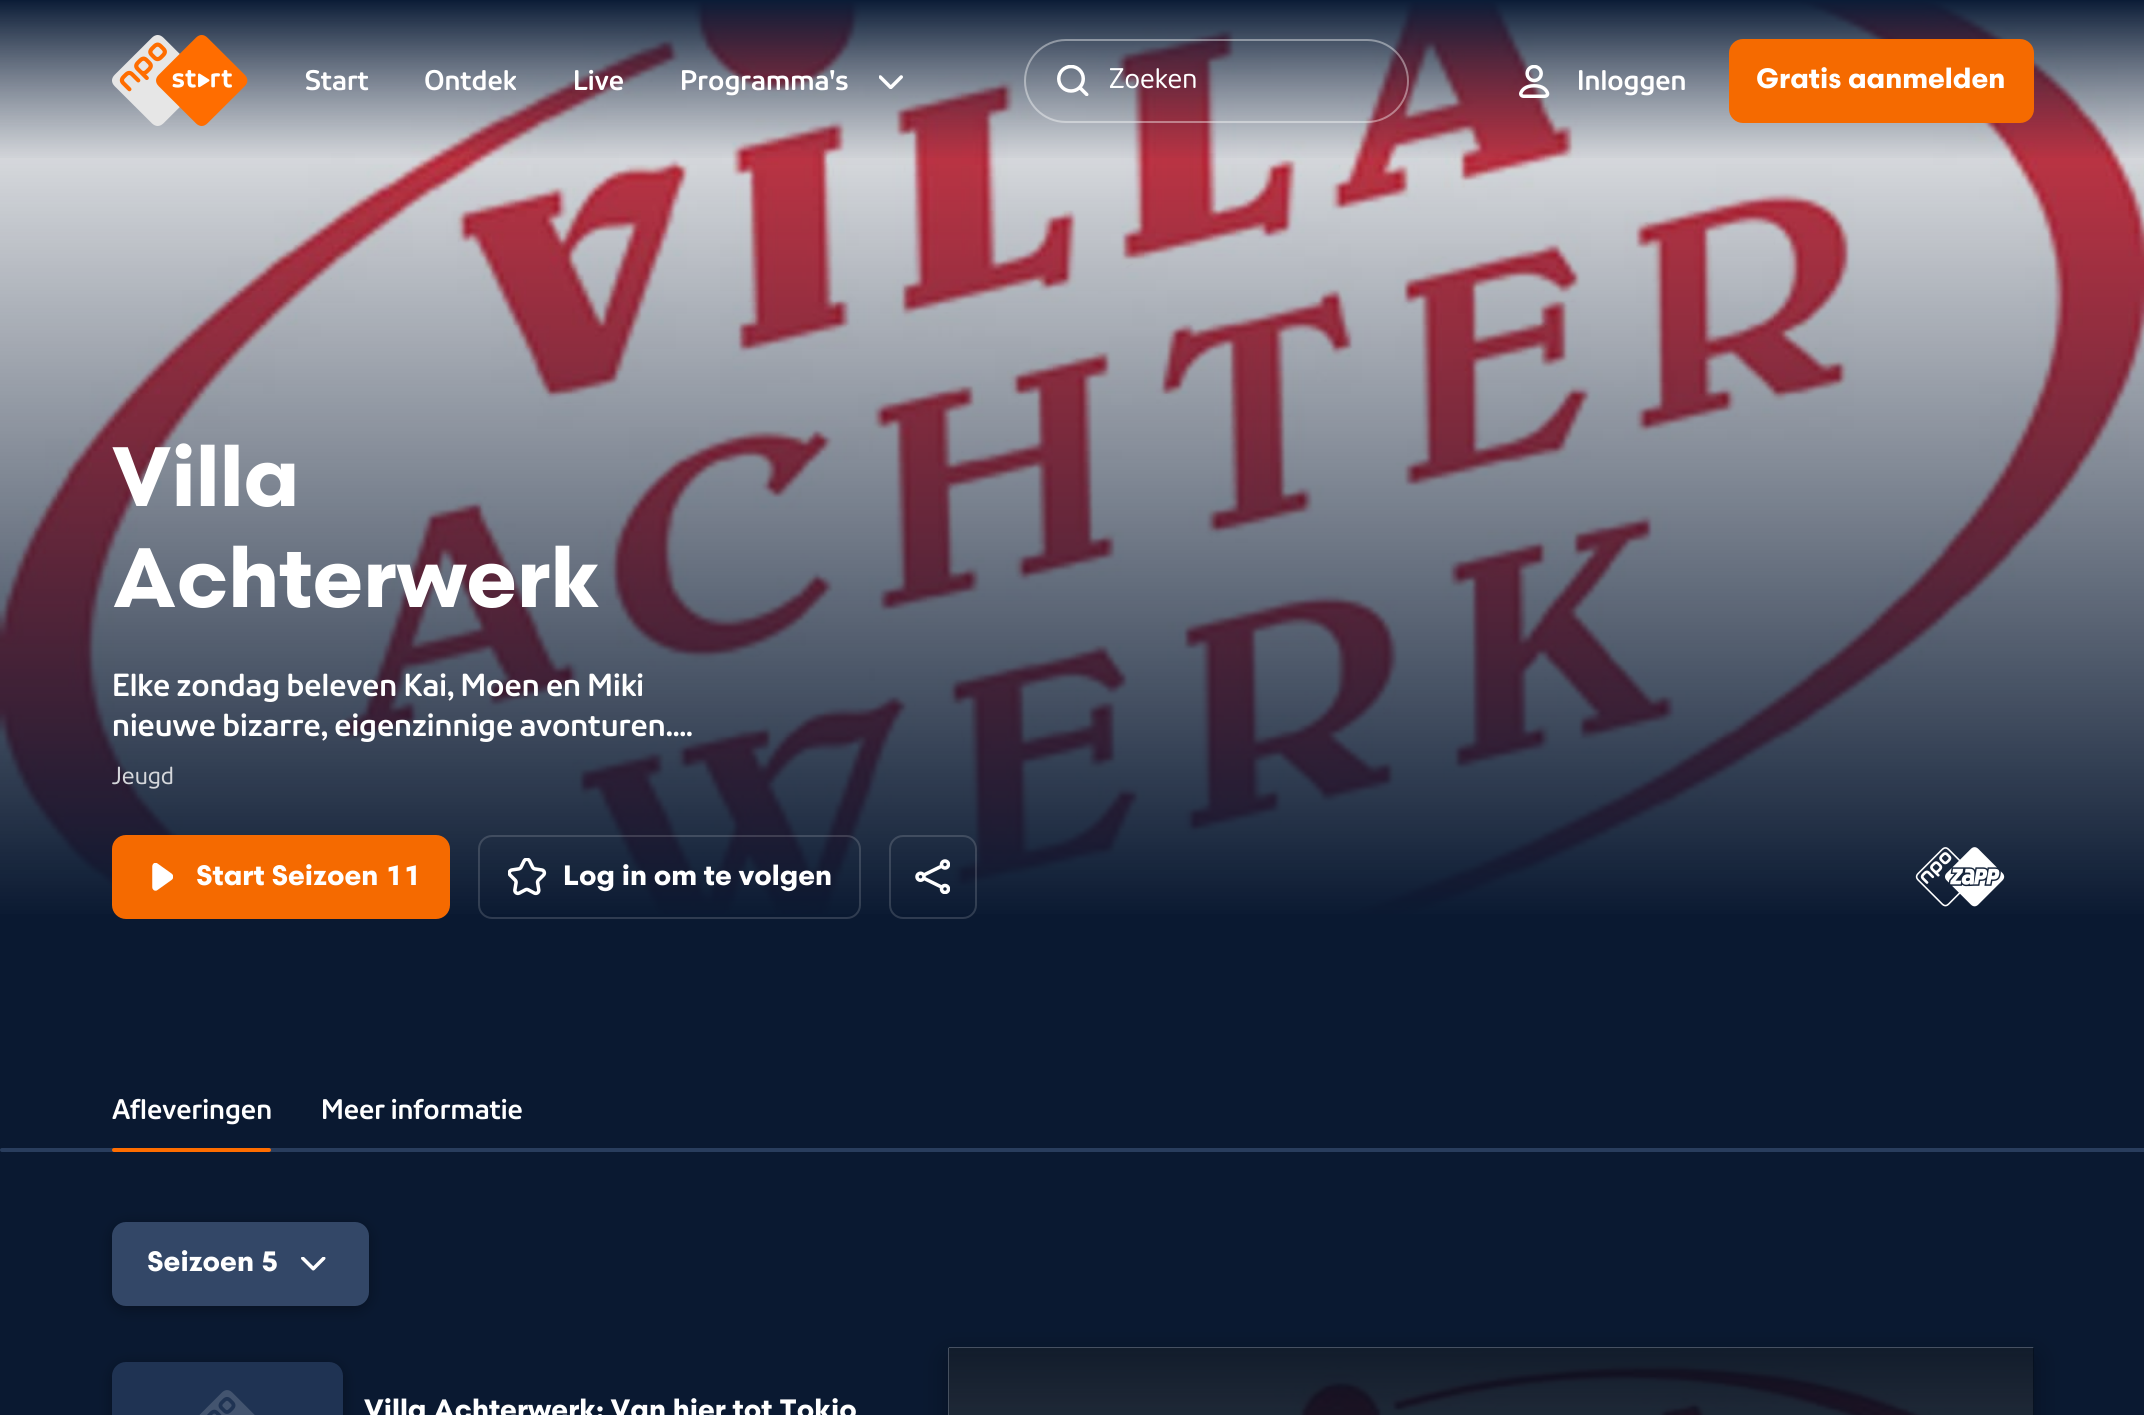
#include <cairo.h>
#include <math.h>
#include <stddef.h>


static void rgb(cairo_t *cr, int r, int g, int b)
{
	cairo_set_source_rgb(cr, r / 255.0, g / 255.0, b / 255.0);
}

static void face(cairo_t *cr, const char *family, double size, int italic, int bold)
{
	cairo_select_font_face(cr, family, italic ? CAIRO_FONT_SLANT_ITALIC : CAIRO_FONT_SLANT_NORMAL,
		bold ? CAIRO_FONT_WEIGHT_BOLD : CAIRO_FONT_WEIGHT_NORMAL);
	cairo_set_font_size(cr, size);
}

static void label(cairo_t *cr, double x, double y, const char *s)
{
	cairo_move_to(cr, x, y);
	cairo_show_text(cr, s);
}

static void rect(cairo_t *cr, double x, double y, double w, double h)
{
	cairo_rectangle(cr, x, y, w, h);
	cairo_fill(cr);
}

static void rrect(cairo_t *cr, double x, double y, double w, double h, double r)
{
	cairo_new_sub_path(cr);
	cairo_arc(cr, x + w - r, y + h - r, r, 0, M_PI / 2);
	cairo_arc(cr, x + r, y + h - r, r, M_PI / 2, M_PI);
	cairo_arc(cr, x + r, y + r, r, M_PI, 1.5 * M_PI);
	cairo_arc(cr, x + w - r, y + r, r, 1.5 * M_PI, 2 * M_PI);
	cairo_close_path(cr);
}

static void soft_shadow(cairo_t *cr, double x, double y, double w, double h, double r, double blur, double alpha)
{
	cairo_push_group_with_content(cr, CAIRO_CONTENT_ALPHA);
	cairo_set_operator(cr, CAIRO_OPERATOR_SOURCE);
	for (int i = 15; i >= -15 && fmin(w, h) + blur * i / 3 > 0; i -= 2) {
		double e = blur * i / 6;
		cairo_set_source_rgba(cr, 0, 0, 0, alpha * erfc((i - 1) / 8.5) / 2);
		rrect(cr, x - e, y - e, w + 2 * e, h + 2 * e, fmax(0, fmin(r + e + blur * .6, fmin(w, h) / 2 + e)));
		cairo_fill(cr);
	}
	cairo_pattern_t *soft = cairo_pop_group(cr);
	cairo_mask(cr, soft);
	cairo_pattern_destroy(soft);
}

static void image(cairo_t *cr, const char *path, double x, double y, double w, double h)
{
	cairo_surface_t *image = cairo_image_surface_create_from_png(path);
	cairo_save(cr);
	cairo_set_source_surface(cr, image, x, y);
	cairo_rectangle(cr, x, y, w, h);
	cairo_fill(cr);
	cairo_restore(cr);
	cairo_surface_destroy(image);
}

static void draw(cairo_t *cr) {
	cairo_pattern_t *gradient;
	rgb(cr, 10, 25, 49);
	cairo_paint(cr);
	image(cr, "image4.png", 0, 1, 2144, 913);
	gradient = cairo_pattern_create_linear(1073, 0, 1073, 919);
	cairo_pattern_add_color_stop_rgba(gradient, 0, 0.039, 0.098, 0.192, 0);
	cairo_pattern_add_color_stop_rgba(gradient, 1, 0.039, 0.098, 0.192, 1);
	cairo_set_source(cr, gradient);
	cairo_pattern_destroy(gradient);
	rect(cr, 0, 20, 2144, 894);
	gradient = cairo_pattern_create_linear(1073, 161, 1073, 0);
	cairo_pattern_add_color_stop_rgba(gradient, 0, 0.043, 0.11, 0.212, 0);
	cairo_pattern_add_color_stop_rgba(gradient, 1, 0.043, 0.11, 0.212, 1);
	cairo_set_source(cr, gradient);
	cairo_pattern_destroy(gradient);
	rect(cr, 0, 0, 2144, 158);
	image(cr, "image0.png", 112, 35, 136, 91);
	face(cr, "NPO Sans", 28, 0, 1);
	rgb(cr, 255, 255, 255);
	label(cr, 305, 90, "Start");
	cairo_save(cr);
	cairo_rectangle(cr, 424, 63, 92, 35);
	cairo_clip(cr);
	label(cr, 424, 90, "Ontdek");
	cairo_restore(cr);
	label(cr, 573, 90, "Live");
	label(cr, 680, 90, "Programma's");
	image(cr, "image1.png", 879, 75, 24, 14);
	rrect(cr, 1025, 40, 383, 82, 41);
	cairo_set_source_rgba(cr, 1, 1, 1, 0.4);
	cairo_stroke(cr);
	image(cr, "image2.png", 1057, 65, 32, 31);
	cairo_save(cr);
	cairo_rectangle(cr, 1110, 65, 213, 33);
	cairo_clip(cr);
	face(cr, "NPO Sans", 28, 0, 0);
	rgb(cr, 255, 255, 255);
	label(cr, 1109, 88, "Zoeken");
	cairo_restore(cr);
	image(cr, "image3.png", 1519, 65, 31, 33);
	rgb(cr, 255, 255, 255);
	label(cr, 1577, 90, "Inloggen");
	rgb(cr, 245, 106, 0);
	rrect(cr, 1729, 39, 305, 84, 14);
	cairo_fill(cr);
	face(cr, "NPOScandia", 28, 0, 1);
	rgb(cr, 255, 255, 255);
	label(cr, 1756, 88, "Gratis aanmelden");
	face(cr, "NPOScandia", 84, 0, 1);
	label(cr, 112, 506, "Villa");
	label(cr, 112, 607, "Achterwerk");
	face(cr, "NPO Sans", 31.5, 0, 1);
	label(cr, 112, 696, "Elke zondag beleven Kai, Moen en Miki");
	label(cr, 112, 736, "nieuwe bizarre, eigenzinnige avonturen.…");
	face(cr, "NPO Sans", 24.5, 0, 0);
	rgb(cr, 213, 215, 219);
	label(cr, 112, 784, "Jeugd");
	rgb(cr, 245, 106, 0);
	rrect(cr, 112, 835, 338, 84, 14);
	cairo_fill(cr);
	image(cr, "image5.png", 152, 863, 21, 28);
	face(cr, "NPOScandia", 28, 0, 1);
	rgb(cr, 255, 255, 255);
	label(cr, 196, 885, "Start Seizoen 11");
	rrect(cr, 479, 836, 381, 82, 13);
	cairo_set_source_rgba(cr, 1, 1, 1, 0.15);
	cairo_stroke(cr);
	image(cr, "image6.png", 508, 858, 39, 38);
	rgb(cr, 255, 255, 255);
	label(cr, 563, 885, "Log in om te volgen");
	rrect(cr, 890, 836, 86, 82, 13);
	cairo_set_source_rgba(cr, 1, 1, 1, 0.15);
	cairo_stroke(cr);
	image(cr, "image7.png", 915, 859, 35, 35);
	image(cr, "image8.png", 1915, 847, 90, 60);
	face(cr, "NPO Sans", 28, 0, 1);
	rgb(cr, 255, 255, 255);
	label(cr, 112, 1119, "Afleveringen");
	rgb(cr, 41, 61, 93);
	rrect(cr, 0, 1148, 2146, 4, 2);
	cairo_fill(cr);
	rgb(cr, 255, 109, 0);
	rrect(cr, 112, 1148, 159, 4, 2);
	cairo_fill(cr);
	rgb(cr, 255, 255, 255);
	label(cr, 321, 1119, "Meer informatie");
	rgb(cr, 0, 0, 0);
	soft_shadow(cr, 112, 1225, 257, 84, 14, 7, 0.35);
	rgb(cr, 51, 71, 103);
	rrect(cr, 112, 1222, 257, 84, 14);
	cairo_fill(cr);
	face(cr, "NPOScandia", 28, 0, 1);
	rgb(cr, 255, 255, 255);
	label(cr, 147, 1271, "Seizoen 5");
	image(cr, "image9.png", 301, 1257, 25, 14);
	rgb(cr, 0, 0, 0);
	soft_shadow(cr, 112, 1365, 231, 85, 14, 7, 0.35);
	rgb(cr, 31, 51, 83);
	rrect(cr, 112, 1362, 231, 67, 14);
	cairo_fill(cr);
	image(cr, "image10.png", 199, 1390, 56, 25);
	rgb(cr, 255, 255, 255);
	label(cr, 364, 1419, "Villa Achterwerk: Van hier tot Tokio");
	rgb(cr, 0, 0, 0);
	soft_shadow(cr, 949, 1358, 1085, 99, 0, 14, 0.35);
	rgb(cr, 0, 0, 0);
	rect(cr, 2033, 1348, 1, 67);
	image(cr, "image11.png", 948, 1347, 1086, 68);
	cairo_set_source_rgba(cr, 0.012, 0.055, 0.118, 0.8);
	rect(cr, 949, 1348, 1085, 67);
	gradient = cairo_pattern_create_linear(1491, 1348, 1491, 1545);
	cairo_pattern_add_color_stop_rgba(gradient, 0, 0.012, 0.055, 0.118, 0.7);
	cairo_pattern_add_color_stop_rgba(gradient, 1, 0.012, 0.055, 0.118, 0);
	cairo_set_source(cr, gradient);
	cairo_pattern_destroy(gradient);
	rect(cr, 949, 1348, 1085, 67);
}

int main(void) {
	cairo_surface_t *surface = cairo_image_surface_create(CAIRO_FORMAT_RGB24, 2144, 1415);
	cairo_t *cr = cairo_create(surface);
	cairo_font_options_t *options = cairo_font_options_create();
	cairo_font_options_set_hint_metrics(options, CAIRO_HINT_METRICS_OFF);
	cairo_font_options_set_hint_style(options, CAIRO_HINT_STYLE_NONE);
	cairo_set_font_options(cr, options);
	cairo_set_miter_limit(cr, 4);
	draw(cr);
	cairo_surface_write_to_png(surface, "render.png");
	cairo_font_options_destroy(options);
	cairo_destroy(cr);
	cairo_surface_destroy(surface);
	return 0;
}
